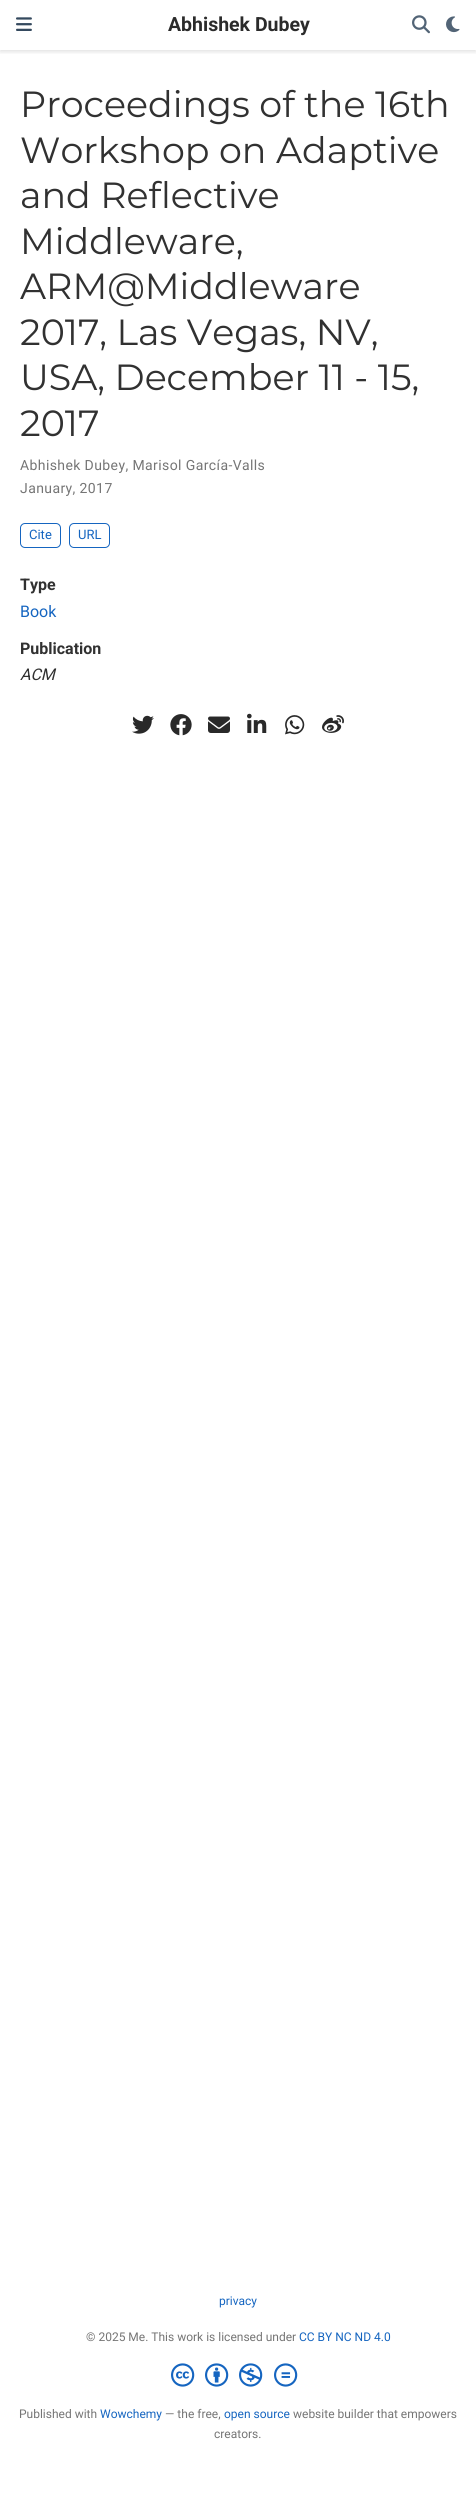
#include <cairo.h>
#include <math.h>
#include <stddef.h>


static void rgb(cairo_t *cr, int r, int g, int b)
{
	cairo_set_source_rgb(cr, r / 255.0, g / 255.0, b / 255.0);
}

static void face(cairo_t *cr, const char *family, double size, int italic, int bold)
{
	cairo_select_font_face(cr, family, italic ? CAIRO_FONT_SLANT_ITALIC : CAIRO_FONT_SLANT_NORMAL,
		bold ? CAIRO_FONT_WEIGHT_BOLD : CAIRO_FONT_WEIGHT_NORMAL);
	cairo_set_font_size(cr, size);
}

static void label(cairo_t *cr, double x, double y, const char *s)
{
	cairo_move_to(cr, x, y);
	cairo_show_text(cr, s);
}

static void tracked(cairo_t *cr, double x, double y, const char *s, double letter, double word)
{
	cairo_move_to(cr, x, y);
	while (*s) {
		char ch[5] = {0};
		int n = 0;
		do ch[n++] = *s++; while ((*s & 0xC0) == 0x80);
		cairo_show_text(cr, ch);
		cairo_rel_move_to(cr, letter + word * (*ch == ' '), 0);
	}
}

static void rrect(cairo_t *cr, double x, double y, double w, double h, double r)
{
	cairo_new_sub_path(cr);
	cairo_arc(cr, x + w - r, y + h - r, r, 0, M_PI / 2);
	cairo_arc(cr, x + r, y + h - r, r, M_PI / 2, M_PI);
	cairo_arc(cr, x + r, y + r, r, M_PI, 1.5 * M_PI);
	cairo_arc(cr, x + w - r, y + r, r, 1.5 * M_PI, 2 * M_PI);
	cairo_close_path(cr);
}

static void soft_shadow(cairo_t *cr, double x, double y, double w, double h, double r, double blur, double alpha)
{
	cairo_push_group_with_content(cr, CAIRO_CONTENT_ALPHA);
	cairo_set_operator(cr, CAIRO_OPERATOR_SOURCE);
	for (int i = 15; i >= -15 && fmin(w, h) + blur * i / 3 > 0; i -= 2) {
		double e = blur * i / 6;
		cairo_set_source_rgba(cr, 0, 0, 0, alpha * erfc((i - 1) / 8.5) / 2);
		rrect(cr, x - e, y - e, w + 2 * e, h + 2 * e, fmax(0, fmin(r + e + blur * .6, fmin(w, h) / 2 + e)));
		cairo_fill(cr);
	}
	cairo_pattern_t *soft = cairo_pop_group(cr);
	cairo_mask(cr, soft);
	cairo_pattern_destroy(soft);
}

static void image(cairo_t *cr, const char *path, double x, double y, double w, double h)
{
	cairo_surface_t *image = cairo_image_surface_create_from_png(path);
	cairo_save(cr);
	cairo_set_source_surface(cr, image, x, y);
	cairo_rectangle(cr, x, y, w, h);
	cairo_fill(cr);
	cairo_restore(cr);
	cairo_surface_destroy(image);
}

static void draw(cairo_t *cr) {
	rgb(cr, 255, 255, 255);
	cairo_paint(cr);
	cairo_save(cr);
	cairo_rectangle(cr, 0, 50, 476, 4);
	cairo_clip(cr);
	rgb(cr, 0, 0, 0);
	soft_shadow(cr, 0, 2, 476, 50, 0, 2, 0.11);
	cairo_restore(cr);
	image(cr, "image0.png", 16, 17, 16, 14);
	face(cr, "Roboto", 19.5, 0, 1);
	rgb(cr, 43, 43, 43);
	label(cr, 168, 31, "Abhishek Dubey");
	image(cr, "image1.png", 412, 15, 18, 19);
	image(cr, "image2.png", 446, 16, 14, 17);
	face(cr, "Montserrat", 36.4, 0, 0);
	rgb(cr, 49, 49, 49);
	label(cr, 20, 117, "Proceedings of the 16th");
	label(cr, 20, 163, "Workshop on Adaptive");
	label(cr, 20, 208, "and Reflective");
	label(cr, 20, 254, "Middleware,");
	label(cr, 20, 299, "ARM@Middleware");
	label(cr, 20, 345, "2017, Las Vegas, NV,");
	label(cr, 20, 390, "USA, December 11 - 15,");
	label(cr, 20, 436, "2017");
	face(cr, "Roboto", 14, 0, 0);
	rgb(cr, 117, 117, 117);
	tracked(cr, 20, 470, "Abhishek Dubey, Marisol García-Valls", 0.4, 0);
	tracked(cr, 20, 493, "January, 2017", 0.4, 0);
	rrect(cr, 20.5, 523.5, 40, 24, 4.5);
	rgb(cr, 21, 101, 192);
	cairo_set_line_width(cr, 1);
	cairo_stroke(cr);
	face(cr, "Roboto", 13, 0, 0);
	label(cr, 29, 539, "Cite");
	rrect(cr, 69.5, 523.5, 40, 24, 4.5);
	cairo_stroke(cr);
	label(cr, 78, 539, "URL");
	face(cr, "Roboto", 16, 0, 1);
	rgb(cr, 49, 49, 49);
	label(cr, 20, 590, "Type");
	face(cr, "Roboto", 16, 0, 0);
	rgb(cr, 21, 101, 192);
	label(cr, 20, 617, "Book");
	face(cr, "Roboto", 16, 0, 1);
	rgb(cr, 49, 49, 49);
	label(cr, 20, 654, "Publication");
	face(cr, "Roboto", 16, 1, 0);
	label(cr, 20, 680, "ACM");
	image(cr, "image3.png", 132, 715, 22, 19);
	image(cr, "image4.png", 170, 714, 22, 22);
	image(cr, "image5.png", 208, 716, 22, 17);
	image(cr, "image6.png", 247, 713, 20, 20);
	image(cr, "image7.png", 285, 715, 20, 20);
	image(cr, "image8.png", 322, 715, 22, 18);
	face(cr, "Roboto", 12, 0, 0);
	rgb(cr, 21, 101, 192);
	label(cr, 219, 2305, "privacy");
	rgb(cr, 117, 117, 117);
	label(cr, 86, 2341, "© 2025 Me. This work is licensed under");
	rgb(cr, 21, 101, 192);
	label(cr, 299, 2341, "CC BY NC ND 4.0");
	image(cr, "image9.png", 171, 2363, 24, 24);
	image(cr, "image10.png", 205, 2363, 24, 24);
	image(cr, "image11.png", 239, 2363, 24, 24);
	image(cr, "image12.png", 274, 2363, 24, 24);
	rgb(cr, 117, 117, 117);
	label(cr, 19, 2418, "Published with");
	rgb(cr, 21, 101, 192);
	label(cr, 100, 2418, "Wowchemy");
	rgb(cr, 117, 117, 117);
	label(cr, 165, 2418, "— the free,");
	rgb(cr, 21, 101, 192);
	label(cr, 224, 2418, "open source");
	rgb(cr, 117, 117, 117);
	label(cr, 293, 2418, "website builder that empowers");
	label(cr, 214, 2438, "creators.");
}

int main(void) {
	cairo_surface_t *surface = cairo_image_surface_create(CAIRO_FORMAT_RGB24, 476, 2495);
	cairo_t *cr = cairo_create(surface);
	cairo_font_options_t *options = cairo_font_options_create();
	cairo_font_options_set_hint_metrics(options, CAIRO_HINT_METRICS_OFF);
	cairo_font_options_set_hint_style(options, CAIRO_HINT_STYLE_NONE);
	cairo_set_font_options(cr, options);
	cairo_set_miter_limit(cr, 4);
	draw(cr);
	cairo_surface_write_to_png(surface, "render.png");
	cairo_font_options_destroy(options);
	cairo_destroy(cr);
	cairo_surface_destroy(surface);
	return 0;
}
